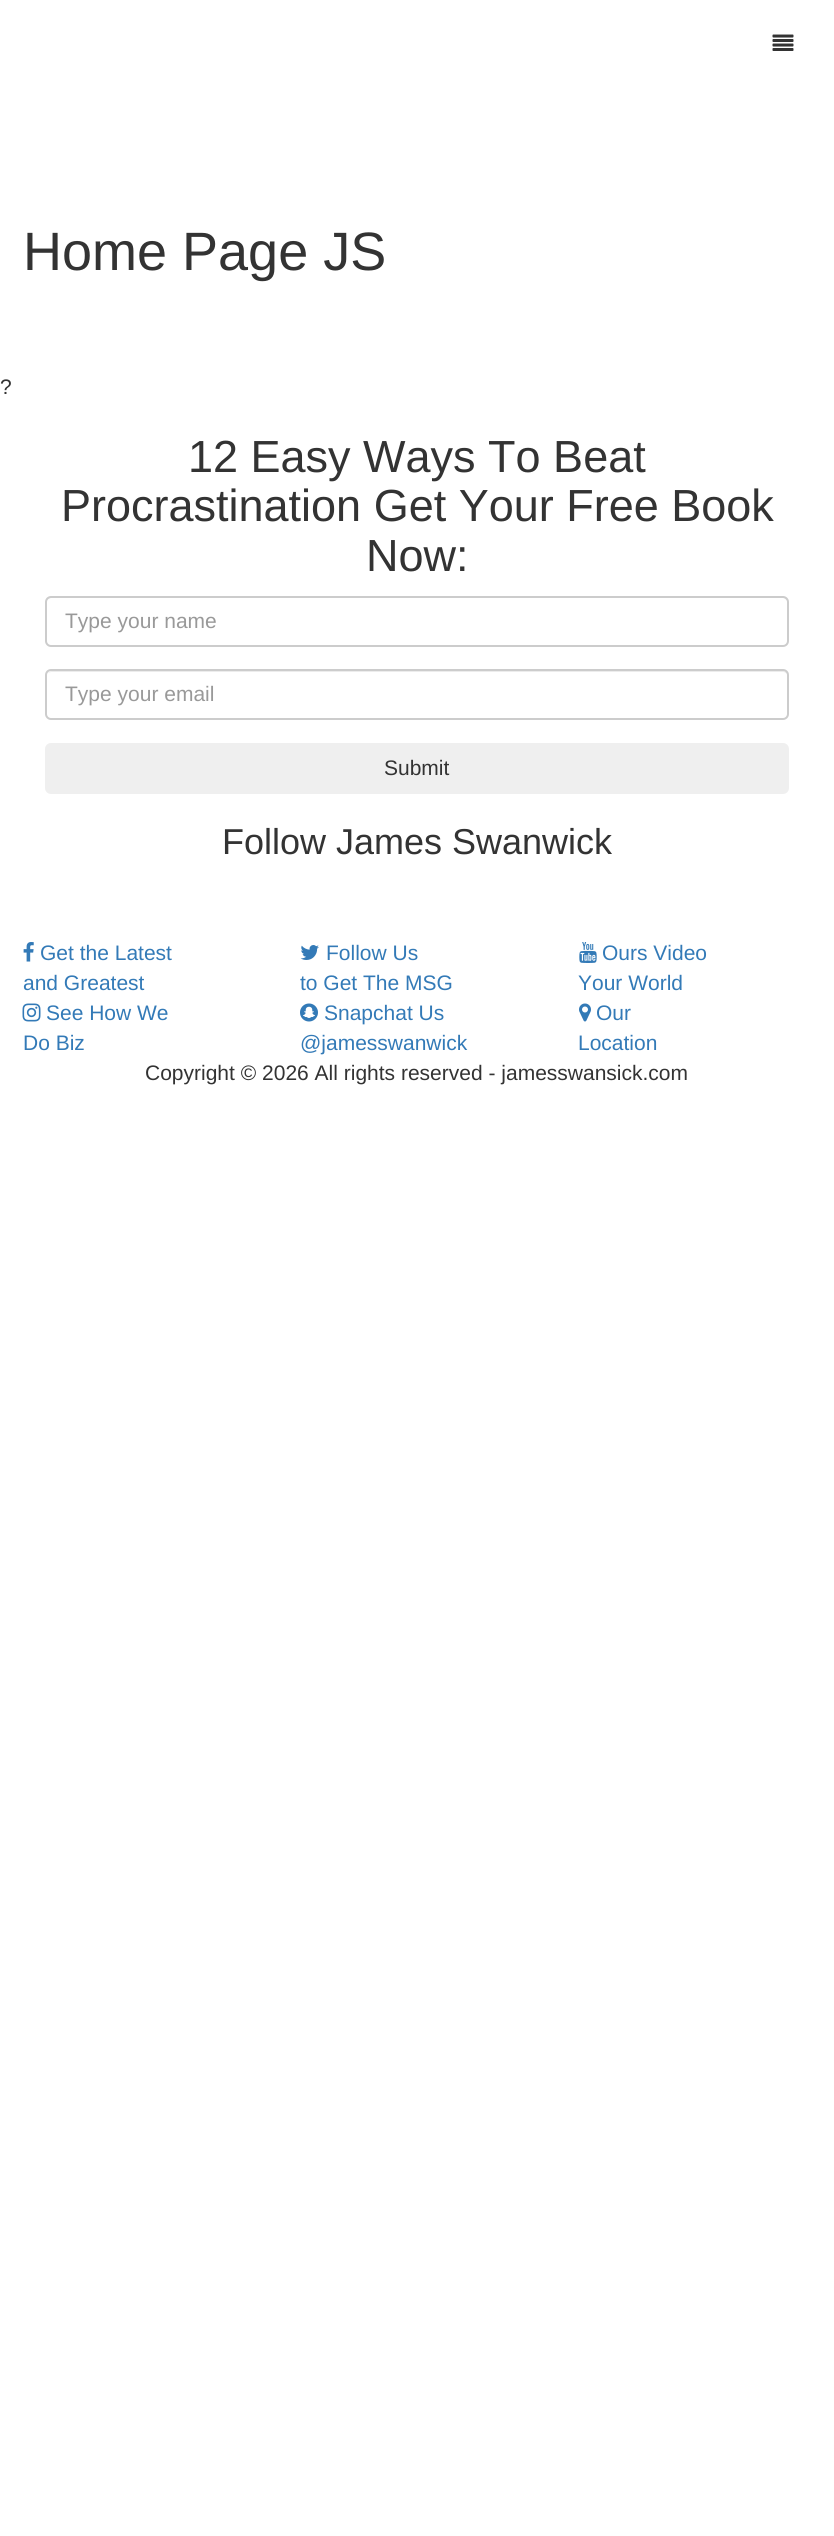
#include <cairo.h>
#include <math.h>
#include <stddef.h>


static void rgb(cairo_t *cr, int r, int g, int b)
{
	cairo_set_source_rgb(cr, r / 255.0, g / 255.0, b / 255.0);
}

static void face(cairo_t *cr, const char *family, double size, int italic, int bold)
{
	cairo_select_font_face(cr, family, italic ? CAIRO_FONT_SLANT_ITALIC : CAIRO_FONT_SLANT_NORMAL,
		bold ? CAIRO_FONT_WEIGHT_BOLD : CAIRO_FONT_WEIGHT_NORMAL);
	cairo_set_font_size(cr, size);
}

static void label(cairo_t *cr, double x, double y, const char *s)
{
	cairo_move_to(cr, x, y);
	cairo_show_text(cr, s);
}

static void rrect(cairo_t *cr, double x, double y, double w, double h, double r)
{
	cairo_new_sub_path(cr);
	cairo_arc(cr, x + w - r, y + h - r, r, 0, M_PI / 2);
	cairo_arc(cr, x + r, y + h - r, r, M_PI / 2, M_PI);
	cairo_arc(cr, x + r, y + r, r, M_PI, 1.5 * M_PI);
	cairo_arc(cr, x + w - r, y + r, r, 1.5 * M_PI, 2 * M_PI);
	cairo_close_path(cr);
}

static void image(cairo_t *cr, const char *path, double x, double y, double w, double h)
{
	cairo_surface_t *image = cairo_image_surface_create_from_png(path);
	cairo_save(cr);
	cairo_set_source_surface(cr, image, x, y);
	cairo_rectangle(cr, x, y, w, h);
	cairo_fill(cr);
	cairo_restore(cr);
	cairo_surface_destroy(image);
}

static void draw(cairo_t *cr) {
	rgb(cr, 255, 255, 255);
	cairo_paint(cr);
	image(cr, "image0.png", 772, 34, 22, 17);
	face(cr, "Liberation Sans", 54, 0, 0);
	rgb(cr, 51, 51, 51);
	label(cr, 23, 270, "Home Page JS");
	face(cr, "Liberation Sans", 21, 0, 0);
	label(cr, 0, 394, "?");
	face(cr, "Liberation Sans", 45, 0, 0);
	label(cr, 188, 472, "12 Easy Ways To Beat");
	label(cr, 61, 521, "Procrastination Get Your Free Book");
	label(cr, 366, 571, "Now:");
	rgb(cr, 236, 236, 236);
	cairo_new_path(cr);
	cairo_move_to(cr, 51, 598);
	cairo_line_to(cr, 783, 598);
	cairo_curve_to(cr, 785, 598, 788, 601, 788, 603);
	cairo_line_to(cr, 788, 602);
	cairo_curve_to(cr, 788, 599, 786, 597, 783, 597);
	cairo_line_to(cr, 52, 597);
	cairo_curve_to(cr, 50, 597, 48, 598, 47, 600);
	cairo_curve_to(cr, 48, 599, 50, 598, 51, 598);
	cairo_close_path(cr);
	cairo_fill(cr);
	rrect(cr, 46, 597, 742, 49, 5);
	rgb(cr, 204, 204, 204);
	cairo_stroke(cr);
	face(cr, "Liberation Sans", 21, 0, 0);
	rgb(cr, 153, 153, 153);
	label(cr, 65, 628, "Type your name");
	rgb(cr, 236, 236, 236);
	cairo_new_path(cr);
	cairo_move_to(cr, 51, 672);
	cairo_line_to(cr, 783, 672);
	cairo_curve_to(cr, 785, 672, 788, 674, 788, 676);
	cairo_curve_to(cr, 788, 673, 786, 671, 783, 671);
	cairo_line_to(cr, 52, 671);
	cairo_curve_to(cr, 50, 671, 49, 672, 48, 673);
	cairo_close_path(cr);
	cairo_fill(cr);
	rrect(cr, 46, 670, 742, 49, 5);
	rgb(cr, 204, 204, 204);
	cairo_stroke(cr);
	rgb(cr, 153, 153, 153);
	label(cr, 65, 701, "Type your email");
	rgb(cr, 239, 239, 239);
	rrect(cr, 45, 743, 744, 51, 6);
	cairo_fill(cr);
	rgb(cr, 51, 51, 51);
	label(cr, 384, 775, "Submit");
	face(cr, "Liberation Sans", 36, 0, 0);
	label(cr, 222, 854, "Follow James Swanwick");
	image(cr, "image1.png", 23, 942, 11, 20);
	face(cr, "Liberation Sans", 21, 0, 0);
	rgb(cr, 51, 122, 183);
	label(cr, 40, 960, "Get the Latest");
	label(cr, 23, 990, "and Greatest");
	image(cr, "image2.png", 300, 945, 19, 15);
	label(cr, 326, 960, "Follow Us");
	label(cr, 300, 990, "to Get The MSG");
	image(cr, "image3.png", 579, 942, 18, 21);
	label(cr, 602, 960, "Ours Video");
	label(cr, 578, 990, "Your World");
	image(cr, "image4.png", 22, 1003, 19, 19);
	label(cr, 46, 1020, "See How We");
	label(cr, 23, 1050, "Do Biz");
	image(cr, "image5.png", 300, 1003, 18, 19);
	label(cr, 324, 1020, "Snapchat Us");
	label(cr, 300, 1050, "@jamesswanwick");
	image(cr, "image6.png", 579, 1003, 12, 19);
	label(cr, 596, 1020, "Our");
	label(cr, 578, 1050, "Location");
	rgb(cr, 51, 51, 51);
	label(cr, 145, 1080, "Copyright © 2026 All rights reserved - jamesswansick.com");
}

int main(void) {
	cairo_surface_t *surface = cairo_image_surface_create(CAIRO_FORMAT_RGB24, 834, 2536);
	cairo_t *cr = cairo_create(surface);
	cairo_font_options_t *options = cairo_font_options_create();
	cairo_font_options_set_hint_metrics(options, CAIRO_HINT_METRICS_OFF);
	cairo_font_options_set_hint_style(options, CAIRO_HINT_STYLE_NONE);
	cairo_set_font_options(cr, options);
	cairo_set_miter_limit(cr, 4);
	draw(cr);
	cairo_surface_write_to_png(surface, "render.png");
	cairo_font_options_destroy(options);
	cairo_destroy(cr);
	cairo_surface_destroy(surface);
	return 0;
}
